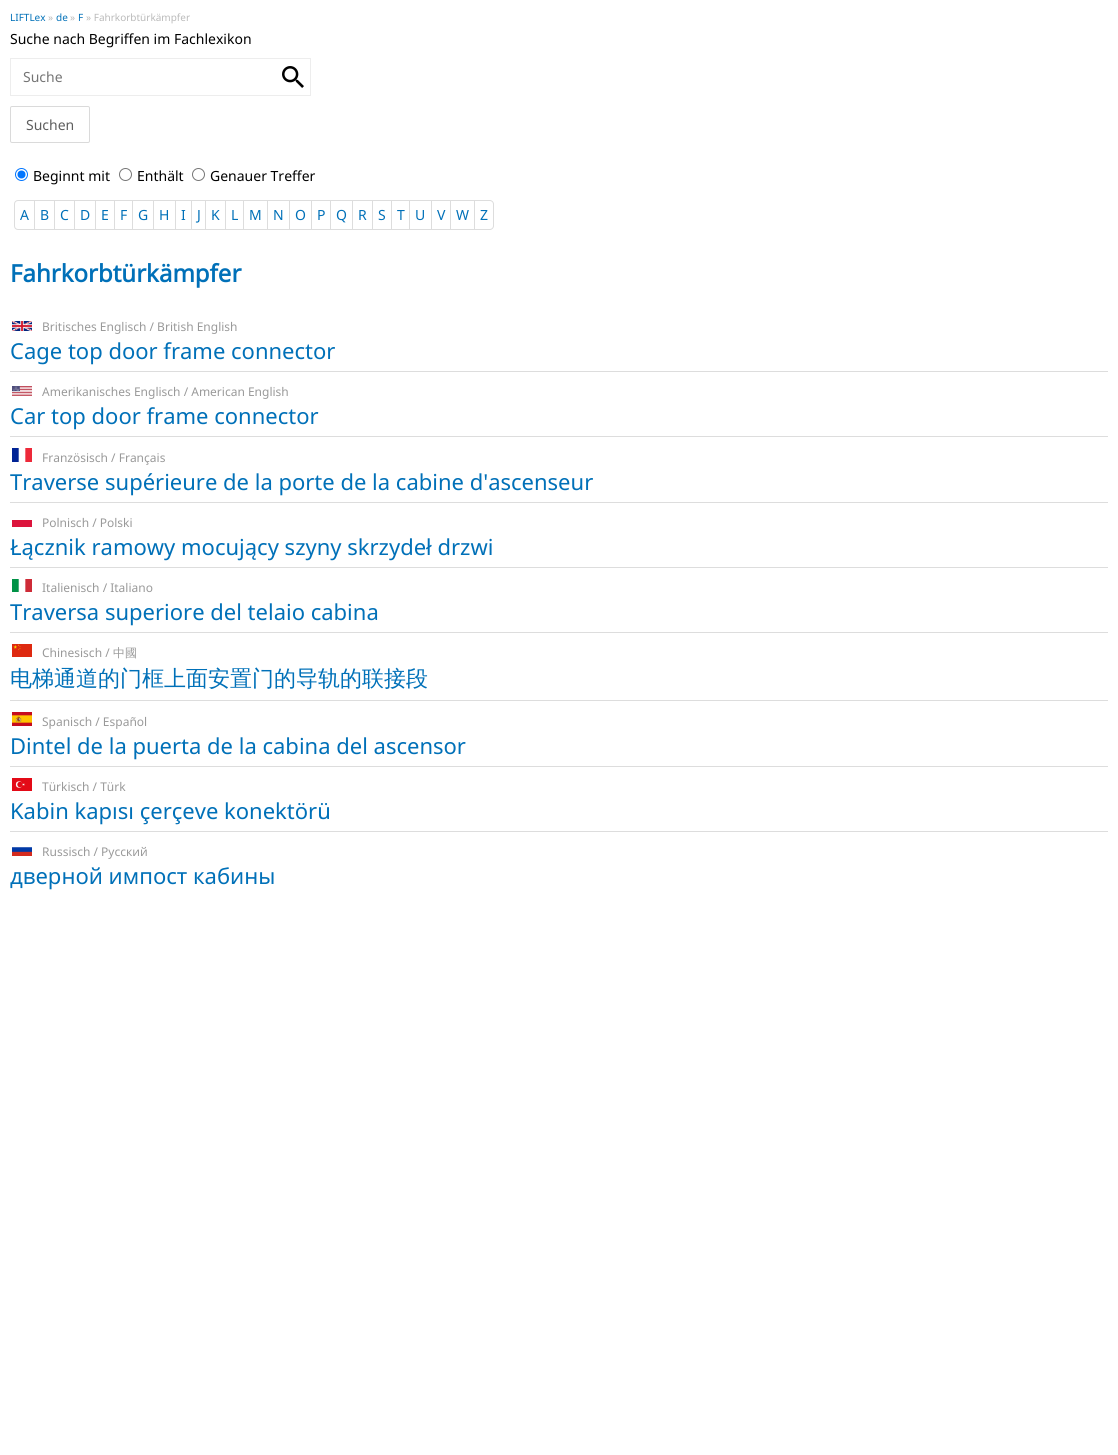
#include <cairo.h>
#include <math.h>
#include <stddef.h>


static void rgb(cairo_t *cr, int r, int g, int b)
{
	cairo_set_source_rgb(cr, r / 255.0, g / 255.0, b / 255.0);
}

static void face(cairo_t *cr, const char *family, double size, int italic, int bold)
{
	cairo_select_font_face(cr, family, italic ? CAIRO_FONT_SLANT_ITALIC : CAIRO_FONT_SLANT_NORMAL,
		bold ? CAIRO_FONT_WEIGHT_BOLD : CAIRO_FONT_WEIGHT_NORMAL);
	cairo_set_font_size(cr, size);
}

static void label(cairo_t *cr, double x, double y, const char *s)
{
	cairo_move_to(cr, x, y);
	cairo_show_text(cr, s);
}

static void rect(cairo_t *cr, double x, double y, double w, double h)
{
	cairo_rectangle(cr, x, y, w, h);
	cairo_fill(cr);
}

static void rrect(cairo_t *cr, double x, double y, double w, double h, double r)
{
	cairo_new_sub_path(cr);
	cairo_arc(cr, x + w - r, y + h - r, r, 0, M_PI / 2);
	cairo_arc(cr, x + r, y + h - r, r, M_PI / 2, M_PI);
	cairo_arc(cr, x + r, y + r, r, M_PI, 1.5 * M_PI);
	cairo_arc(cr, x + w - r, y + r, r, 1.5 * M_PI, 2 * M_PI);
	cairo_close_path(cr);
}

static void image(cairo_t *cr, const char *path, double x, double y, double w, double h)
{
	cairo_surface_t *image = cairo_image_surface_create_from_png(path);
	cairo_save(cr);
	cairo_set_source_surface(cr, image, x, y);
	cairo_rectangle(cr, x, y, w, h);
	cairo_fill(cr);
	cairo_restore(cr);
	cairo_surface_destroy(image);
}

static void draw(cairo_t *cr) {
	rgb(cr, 255, 255, 255);
	cairo_paint(cr);
	face(cr, "Noto Sans", 10, 0, 0);
	rgb(cr, 0, 112, 184);
	label(cr, 10, 21, "LIFTLex");
	rgb(cr, 186, 186, 186);
	label(cr, 48, 21, "»");
	rgb(cr, 0, 112, 184);
	label(cr, 56, 21, "de");
	rgb(cr, 186, 186, 186);
	label(cr, 70, 21, "»");
	rgb(cr, 0, 112, 184);
	label(cr, 78, 21, "F");
	rgb(cr, 186, 186, 186);
	label(cr, 86, 21, "» Fahrkorbtürkämpfer");
	face(cr, "Noto Sans", 14, 0, 0);
	rgb(cr, 0, 0, 0);
	label(cr, 10, 44, "Suche nach Begriffen im Fachlexikon");
	image(cr, "image0.png", 282, 66, 22, 22);
	cairo_rectangle(cr, 10.5, 58.5, 300, 37);
	rgb(cr, 237, 237, 237);
	cairo_set_line_width(cr, 1);
	cairo_stroke(cr);
	rgb(cr, 117, 117, 117);
	label(cr, 23, 82, "Suche");
	rrect(cr, 10.5, 106.5, 79, 36, 1.5);
	rgb(cr, 218, 218, 218);
	cairo_stroke(cr);
	rgb(cr, 94, 94, 94);
	label(cr, 26, 130, "Suchen");
	cairo_new_path(cr);
	cairo_arc(cr, 21.5, 174.5, 6, 0, 2 * M_PI);
	rgb(cr, 0, 117, 255);
	cairo_stroke(cr);
	cairo_arc(cr, 21.5, 174.5, 4, 0, 2 * M_PI);
	cairo_fill(cr);
	rgb(cr, 0, 0, 0);
	label(cr, 33, 181, "Beginnt mit");
	cairo_new_path(cr);
	cairo_arc(cr, 125.5, 174.5, 6, 0, 2 * M_PI);
	rgb(cr, 118, 118, 118);
	cairo_stroke(cr);
	rgb(cr, 0, 0, 0);
	label(cr, 137, 181, "Enthält");
	cairo_new_path(cr);
	cairo_arc(cr, 198.5, 174.5, 6, 0, 2 * M_PI);
	rgb(cr, 118, 118, 118);
	cairo_stroke(cr);
	rgb(cr, 0, 0, 0);
	label(cr, 210, 181, "Genauer Treffer");
	cairo_new_path(cr);
	cairo_move_to(cr, 18, 200.5);
	cairo_line_to(cr, 34.5, 200.5);
	cairo_line_to(cr, 34.5, 229.5);
	cairo_line_to(cr, 18, 229.5);
	cairo_curve_to(cr, 16, 229.5, 14.5, 228, 14.5, 226);
	cairo_line_to(cr, 14.5, 204);
	cairo_curve_to(cr, 14.5, 202, 16, 200.5, 18, 200.5);
	cairo_close_path(cr);
	rgb(cr, 221, 221, 221);
	cairo_stroke(cr);
	rgb(cr, 0, 112, 184);
	label(cr, 20, 220, "A");
	rgb(cr, 221, 221, 221);
	rect(cr, 35, 200, 440, 1);
	rect(cr, 54, 200, 1, 30);
	rect(cr, 35, 229, 20, 1);
	rgb(cr, 0, 112, 184);
	label(cr, 40, 220, "B");
	rgb(cr, 221, 221, 221);
	rect(cr, 74, 200, 1, 30);
	rect(cr, 55, 229, 20, 1);
	rgb(cr, 0, 112, 184);
	label(cr, 60, 220, "C");
	rgb(cr, 221, 221, 221);
	rect(cr, 95, 200, 1, 30);
	rect(cr, 75, 229, 21, 1);
	rgb(cr, 0, 112, 184);
	label(cr, 80, 220, "D");
	rgb(cr, 221, 221, 221);
	rect(cr, 114, 200, 1, 30);
	rect(cr, 96, 229, 19, 1);
	rgb(cr, 0, 112, 184);
	label(cr, 101, 220, "E");
	rgb(cr, 221, 221, 221);
	rect(cr, 132, 200, 1, 30);
	rect(cr, 115, 229, 18, 1);
	rgb(cr, 0, 112, 184);
	label(cr, 120, 220, "F");
	rgb(cr, 221, 221, 221);
	rect(cr, 153, 200, 1, 30);
	rect(cr, 133, 229, 21, 1);
	rgb(cr, 0, 112, 184);
	label(cr, 138, 220, "G");
	rgb(cr, 221, 221, 221);
	rect(cr, 175, 200, 1, 30);
	rect(cr, 154, 229, 22, 1);
	rgb(cr, 0, 112, 184);
	label(cr, 159, 220, "H");
	rgb(cr, 221, 221, 221);
	rect(cr, 191, 200, 1, 30);
	rect(cr, 176, 229, 16, 1);
	rgb(cr, 0, 112, 184);
	label(cr, 181, 220, "I");
	rgb(cr, 221, 221, 221);
	rect(cr, 205, 200, 1, 30);
	rect(cr, 192, 229, 14, 1);
	rgb(cr, 0, 112, 184);
	label(cr, 197, 220, "J");
	rgb(cr, 221, 221, 221);
	rect(cr, 225, 200, 1, 30);
	rect(cr, 206, 229, 20, 1);
	rgb(cr, 0, 112, 184);
	label(cr, 211, 220, "K");
	rgb(cr, 221, 221, 221);
	rect(cr, 243, 200, 1, 30);
	rect(cr, 226, 229, 18, 1);
	rgb(cr, 0, 112, 184);
	label(cr, 231, 220, "L");
	rgb(cr, 221, 221, 221);
	rect(cr, 267, 200, 1, 30);
	rect(cr, 244, 229, 24, 1);
	rgb(cr, 0, 112, 184);
	label(cr, 249, 220, "M");
	rgb(cr, 221, 221, 221);
	rect(cr, 289, 200, 1, 30);
	rect(cr, 268, 229, 22, 1);
	rgb(cr, 0, 112, 184);
	label(cr, 273, 220, "N");
	rgb(cr, 221, 221, 221);
	rect(cr, 311, 200, 1, 30);
	rect(cr, 290, 229, 22, 1);
	rgb(cr, 0, 112, 184);
	label(cr, 295, 220, "O");
	rgb(cr, 221, 221, 221);
	rect(cr, 330, 200, 1, 30);
	rect(cr, 312, 229, 19, 1);
	rgb(cr, 0, 112, 184);
	label(cr, 317, 220, "P");
	rgb(cr, 221, 221, 221);
	rect(cr, 352, 200, 1, 30);
	rect(cr, 331, 229, 22, 1);
	rgb(cr, 0, 112, 184);
	label(cr, 336, 220, "Q");
	rgb(cr, 221, 221, 221);
	rect(cr, 372, 200, 1, 30);
	rect(cr, 353, 229, 20, 1);
	rgb(cr, 0, 112, 184);
	label(cr, 358, 220, "R");
	rgb(cr, 221, 221, 221);
	rect(cr, 391, 200, 1, 30);
	rect(cr, 373, 229, 19, 1);
	rgb(cr, 0, 112, 184);
	label(cr, 378, 220, "S");
	rgb(cr, 221, 221, 221);
	rect(cr, 409, 200, 1, 30);
	rect(cr, 392, 229, 18, 1);
	rgb(cr, 0, 112, 184);
	label(cr, 397, 220, "T");
	rgb(cr, 221, 221, 221);
	rect(cr, 431, 200, 1, 30);
	rect(cr, 410, 229, 22, 1);
	rgb(cr, 0, 112, 184);
	label(cr, 415, 220, "U");
	rgb(cr, 221, 221, 221);
	rect(cr, 450, 200, 1, 30);
	rect(cr, 432, 229, 19, 1);
	rgb(cr, 0, 112, 184);
	label(cr, 437, 220, "V");
	rgb(cr, 221, 221, 221);
	rect(cr, 474, 200, 1, 30);
	rect(cr, 451, 229, 24, 1);
	rgb(cr, 0, 112, 184);
	label(cr, 456, 220, "W");
	rgb(cr, 221, 221, 221);
	cairo_set_fill_rule(cr, CAIRO_FILL_RULE_EVEN_ODD);
	cairo_new_path(cr);
	cairo_move_to(cr, 475, 200);
	cairo_line_to(cr, 490, 200);
	cairo_curve_to(cr, 492, 200, 494, 202, 494, 204);
	cairo_line_to(cr, 494, 226);
	cairo_curve_to(cr, 494, 228, 492, 230, 490, 230);
	cairo_line_to(cr, 475, 230);
	cairo_close_path(cr);
	cairo_move_to(cr, 475, 201);
	cairo_line_to(cr, 490, 201);
	cairo_curve_to(cr, 491.5, 201, 493, 202.5, 493, 204);
	cairo_line_to(cr, 493, 226);
	cairo_curve_to(cr, 493, 227.5, 491.5, 229, 490, 229);
	cairo_line_to(cr, 475, 229);
	cairo_close_path(cr);
	cairo_fill(cr);
	rgb(cr, 0, 112, 184);
	label(cr, 480, 220, "Z");
	face(cr, "Noto Sans", 24, 0, 1);
	label(cr, 10, 282, "Fahrkorbtürkämpfer");
	rgb(cr, 221, 221, 221);
	rect(cr, 10, 371, 1098, 1);
	image(cr, "image1.png", 12, 321, 20, 10);
	face(cr, "Noto Sans", 12, 0, 0);
	rgb(cr, 153, 153, 153);
	label(cr, 42, 331, "Britisches Englisch / British English");
	face(cr, "Noto Sans", 22, 0, 0);
	rgb(cr, 0, 112, 184);
	label(cr, 10, 359, "Cage top door frame connector");
	rgb(cr, 221, 221, 221);
	rect(cr, 10, 436, 1098, 1);
	image(cr, "image2.png", 12, 386, 20, 10);
	face(cr, "Noto Sans", 12, 0, 0);
	rgb(cr, 153, 153, 153);
	label(cr, 42, 396, "Amerikanisches Englisch / American English");
	face(cr, "Noto Sans", 22, 0, 0);
	rgb(cr, 0, 112, 184);
	label(cr, 10, 424, "Car top door frame connector");
	rgb(cr, 221, 221, 221);
	rect(cr, 10, 502, 1098, 1);
	image(cr, "image3.png", 12, 448, 20, 14);
	face(cr, "Noto Sans", 12, 0, 0);
	rgb(cr, 153, 153, 153);
	label(cr, 42, 462, "Französisch / Français");
	face(cr, "Noto Sans", 22, 0, 0);
	rgb(cr, 0, 112, 184);
	label(cr, 10, 490, "Traverse supérieure de la porte de la cabine d'ascenseur");
	rgb(cr, 221, 221, 221);
	rect(cr, 10, 567, 1098, 1);
	rgb(cr, 220, 20, 60);
	rect(cr, 12, 520, 20, 7);
	face(cr, "Noto Sans", 12, 0, 0);
	rgb(cr, 153, 153, 153);
	label(cr, 42, 527, "Polnisch / Polski");
	face(cr, "Noto Sans", 22, 0, 0);
	rgb(cr, 0, 112, 184);
	label(cr, 10, 555, "Łącznik ramowy mocujący szyny skrzydeł drzwi");
	rgb(cr, 221, 221, 221);
	rect(cr, 10, 632, 1098, 1);
	image(cr, "image4.png", 12, 579, 20, 13);
	face(cr, "Noto Sans", 12, 0, 0);
	rgb(cr, 153, 153, 153);
	label(cr, 42, 592, "Italienisch / Italiano");
	face(cr, "Noto Sans", 22, 0, 0);
	rgb(cr, 0, 112, 184);
	label(cr, 10, 620, "Traversa superiore del telaio cabina");
	rgb(cr, 221, 221, 221);
	rect(cr, 10, 700, 1098, 1);
	image(cr, "image5.png", 12, 644, 20, 13);
	face(cr, "Noto Sans", 12, 0, 0);
	rgb(cr, 153, 153, 153);
	label(cr, 42, 657, "Chinesisch /");
	face(cr, "WenQuanYi Zen Hei Medium", 12, 0, 0);
	label(cr, 113, 657, "中國");
	face(cr, "WenQuanYi Zen Hei Medium", 22, 0, 0);
	rgb(cr, 0, 112, 184);
	label(cr, 10, 686, "电梯通道的门框上面安置门的导轨的联接段");
	rgb(cr, 221, 221, 221);
	rect(cr, 10, 766, 1098, 1);
	image(cr, "image6.png", 12, 712, 20, 14);
	face(cr, "Noto Sans", 12, 0, 0);
	rgb(cr, 153, 153, 153);
	label(cr, 42, 726, "Spanisch / Español");
	face(cr, "Noto Sans", 22, 0, 0);
	rgb(cr, 0, 112, 184);
	label(cr, 10, 754, "Dintel de la puerta de la cabina del ascensor");
	rgb(cr, 221, 221, 221);
	rect(cr, 10, 831, 1098, 1);
	image(cr, "image7.png", 12, 778, 20, 13);
	face(cr, "Noto Sans", 12, 0, 0);
	rgb(cr, 153, 153, 153);
	label(cr, 42, 791, "Türkisch / Türk");
	face(cr, "Noto Sans", 22, 0, 0);
	rgb(cr, 0, 112, 184);
	label(cr, 10, 819, "Kabin kapısı çerçeve konektörü");
	image(cr, "image8.png", 12, 847, 20, 9);
	face(cr, "Noto Sans", 12, 0, 0);
	rgb(cr, 153, 153, 153);
	label(cr, 42, 856, "Russisch / Pусский");
	face(cr, "Noto Sans", 22, 0, 0);
	rgb(cr, 0, 112, 184);
	label(cr, 10, 884, "дверной импост кабины");
}

int main(void) {
	cairo_surface_t *surface = cairo_image_surface_create(CAIRO_FORMAT_RGB24, 1118, 1455);
	cairo_t *cr = cairo_create(surface);
	cairo_font_options_t *options = cairo_font_options_create();
	cairo_font_options_set_hint_metrics(options, CAIRO_HINT_METRICS_OFF);
	cairo_font_options_set_hint_style(options, CAIRO_HINT_STYLE_NONE);
	cairo_set_font_options(cr, options);
	cairo_set_miter_limit(cr, 4);
	draw(cr);
	cairo_surface_write_to_png(surface, "render.png");
	cairo_font_options_destroy(options);
	cairo_destroy(cr);
	cairo_surface_destroy(surface);
	return 0;
}
